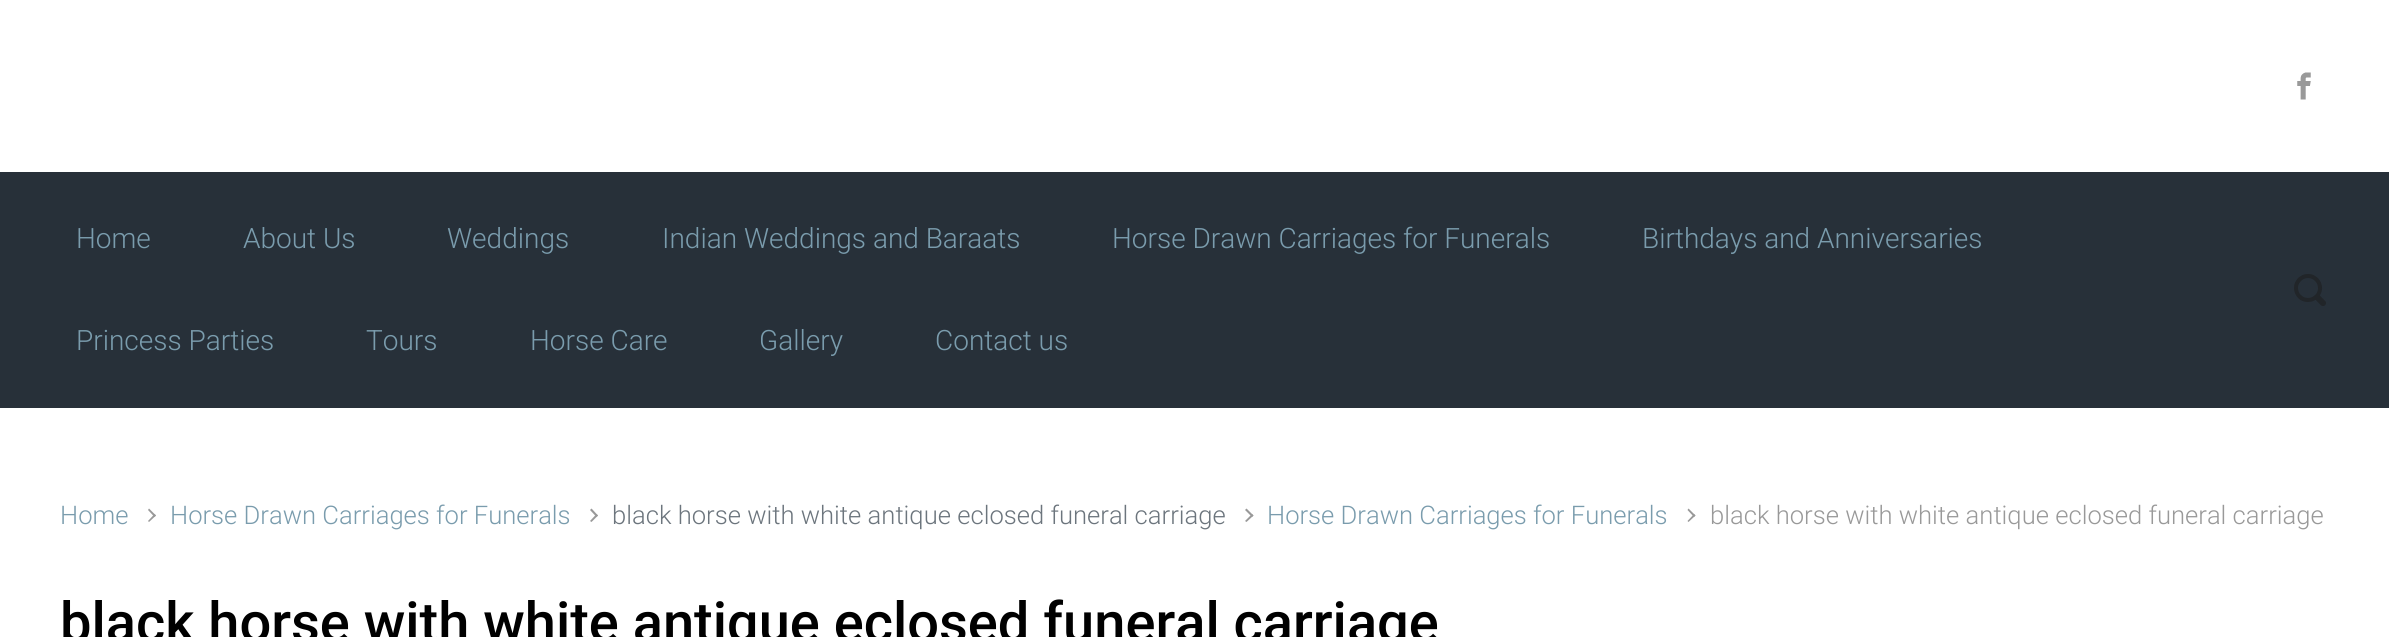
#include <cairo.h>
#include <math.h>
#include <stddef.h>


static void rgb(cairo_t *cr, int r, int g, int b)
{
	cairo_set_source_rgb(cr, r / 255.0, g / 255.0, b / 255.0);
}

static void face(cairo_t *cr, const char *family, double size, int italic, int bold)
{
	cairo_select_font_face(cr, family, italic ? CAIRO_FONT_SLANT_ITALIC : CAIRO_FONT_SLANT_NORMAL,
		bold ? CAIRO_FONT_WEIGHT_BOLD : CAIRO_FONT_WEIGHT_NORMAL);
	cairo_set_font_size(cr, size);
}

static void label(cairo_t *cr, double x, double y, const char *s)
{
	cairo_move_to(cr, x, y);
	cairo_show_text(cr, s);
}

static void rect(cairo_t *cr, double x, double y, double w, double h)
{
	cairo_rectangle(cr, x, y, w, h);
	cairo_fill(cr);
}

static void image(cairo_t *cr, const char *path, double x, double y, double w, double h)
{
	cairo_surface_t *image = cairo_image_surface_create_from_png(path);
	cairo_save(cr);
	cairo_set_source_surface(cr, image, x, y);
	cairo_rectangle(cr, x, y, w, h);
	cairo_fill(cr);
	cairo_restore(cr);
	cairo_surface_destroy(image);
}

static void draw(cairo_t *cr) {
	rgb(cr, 255, 255, 255);
	cairo_paint(cr);
	image(cr, "image0.png", 2297, 72, 14, 28);
	rgb(cr, 39, 48, 57);
	rect(cr, 0, 172, 2389, 236);
	face(cr, "Roboto Light", 28, 0, 0);
	rgb(cr, 122, 156, 173);
	label(cr, 76, 248, "Home");
	label(cr, 243, 248, "About Us");
	label(cr, 447, 248, "Weddings");
	label(cr, 662, 248, "Indian Weddings and Baraats");
	label(cr, 1112, 248, "Horse Drawn Carriages for Funerals");
	label(cr, 1642, 248, "Birthdays and Anniversaries");
	label(cr, 76, 350, "Princess Parties");
	label(cr, 366, 350, "Tours");
	label(cr, 530, 350, "Horse Care");
	label(cr, 759, 350, "Gallery");
	label(cr, 935, 350, "Contact us");
	image(cr, "image1.png", 2294, 274, 32, 32);
	face(cr, "Roboto Light", 25.6, 0, 0);
	label(cr, 60, 524, "Home");
	rgb(cr, 153, 153, 153);
	cairo_new_path(cr);
	cairo_move_to(cr, 148, 510);
	cairo_line_to(cr, 149, 508.5);
	cairo_line_to(cr, 156, 515.5);
	cairo_line_to(cr, 154.5, 517);
	cairo_close_path(cr);
	cairo_fill(cr);
	cairo_new_path(cr);
	cairo_move_to(cr, 148, 521);
	cairo_line_to(cr, 154.5, 514);
	cairo_line_to(cr, 156, 515.5);
	cairo_line_to(cr, 149, 522);
	cairo_close_path(cr);
	cairo_fill(cr);
	rgb(cr, 122, 156, 173);
	label(cr, 170, 524, "Horse Drawn Carriages for Funerals");
	rgb(cr, 153, 153, 153);
	cairo_new_path(cr);
	cairo_move_to(cr, 590, 510);
	cairo_line_to(cr, 591.5, 508.5);
	cairo_line_to(cr, 598, 515.5);
	cairo_line_to(cr, 596.5, 517);
	cairo_close_path(cr);
	cairo_fill(cr);
	cairo_new_path(cr);
	cairo_move_to(cr, 590, 521);
	cairo_line_to(cr, 596.5, 514);
	cairo_line_to(cr, 598, 515.5);
	cairo_line_to(cr, 591.5, 522);
	cairo_close_path(cr);
	cairo_fill(cr);
	rgb(cr, 108, 117, 125);
	label(cr, 612, 524, "black horse with white antique eclosed funeral carriage");
	rgb(cr, 153, 153, 153);
	cairo_new_path(cr);
	cairo_move_to(cr, 1245, 510);
	cairo_line_to(cr, 1246.5, 508.5);
	cairo_line_to(cr, 1253.5, 515.5);
	cairo_line_to(cr, 1252, 517);
	cairo_close_path(cr);
	cairo_fill(cr);
	cairo_new_path(cr);
	cairo_move_to(cr, 1245, 521);
	cairo_line_to(cr, 1252, 514);
	cairo_line_to(cr, 1253.5, 515.5);
	cairo_line_to(cr, 1246.5, 522);
	cairo_close_path(cr);
	cairo_fill(cr);
	rgb(cr, 122, 156, 173);
	label(cr, 1267, 524, "Horse Drawn Carriages for Funerals");
	rgb(cr, 153, 153, 153);
	cairo_new_path(cr);
	cairo_move_to(cr, 1687.5, 510);
	cairo_line_to(cr, 1688.5, 508.5);
	cairo_line_to(cr, 1695.5, 515.5);
	cairo_line_to(cr, 1694, 517);
	cairo_close_path(cr);
	cairo_fill(cr);
	cairo_new_path(cr);
	cairo_move_to(cr, 1687.5, 521);
	cairo_line_to(cr, 1694, 514);
	cairo_line_to(cr, 1695.5, 515.5);
	cairo_line_to(cr, 1688.5, 522);
	cairo_close_path(cr);
	cairo_fill(cr);
	label(cr, 1710, 524, "black horse with white antique eclosed funeral carriage");
	face(cr, "Roboto Medium", 56, 0, 0);
	rgb(cr, 0, 0, 0);
	label(cr, 60, 642, "black horse with white antique eclosed funeral carriage");
}

int main(void) {
	cairo_surface_t *surface = cairo_image_surface_create(CAIRO_FORMAT_RGB24, 2389, 637);
	cairo_t *cr = cairo_create(surface);
	cairo_font_options_t *options = cairo_font_options_create();
	cairo_font_options_set_hint_metrics(options, CAIRO_HINT_METRICS_OFF);
	cairo_font_options_set_hint_style(options, CAIRO_HINT_STYLE_NONE);
	cairo_set_font_options(cr, options);
	cairo_set_miter_limit(cr, 4);
	draw(cr);
	cairo_surface_write_to_png(surface, "render.png");
	cairo_font_options_destroy(options);
	cairo_destroy(cr);
	cairo_surface_destroy(surface);
	return 0;
}
